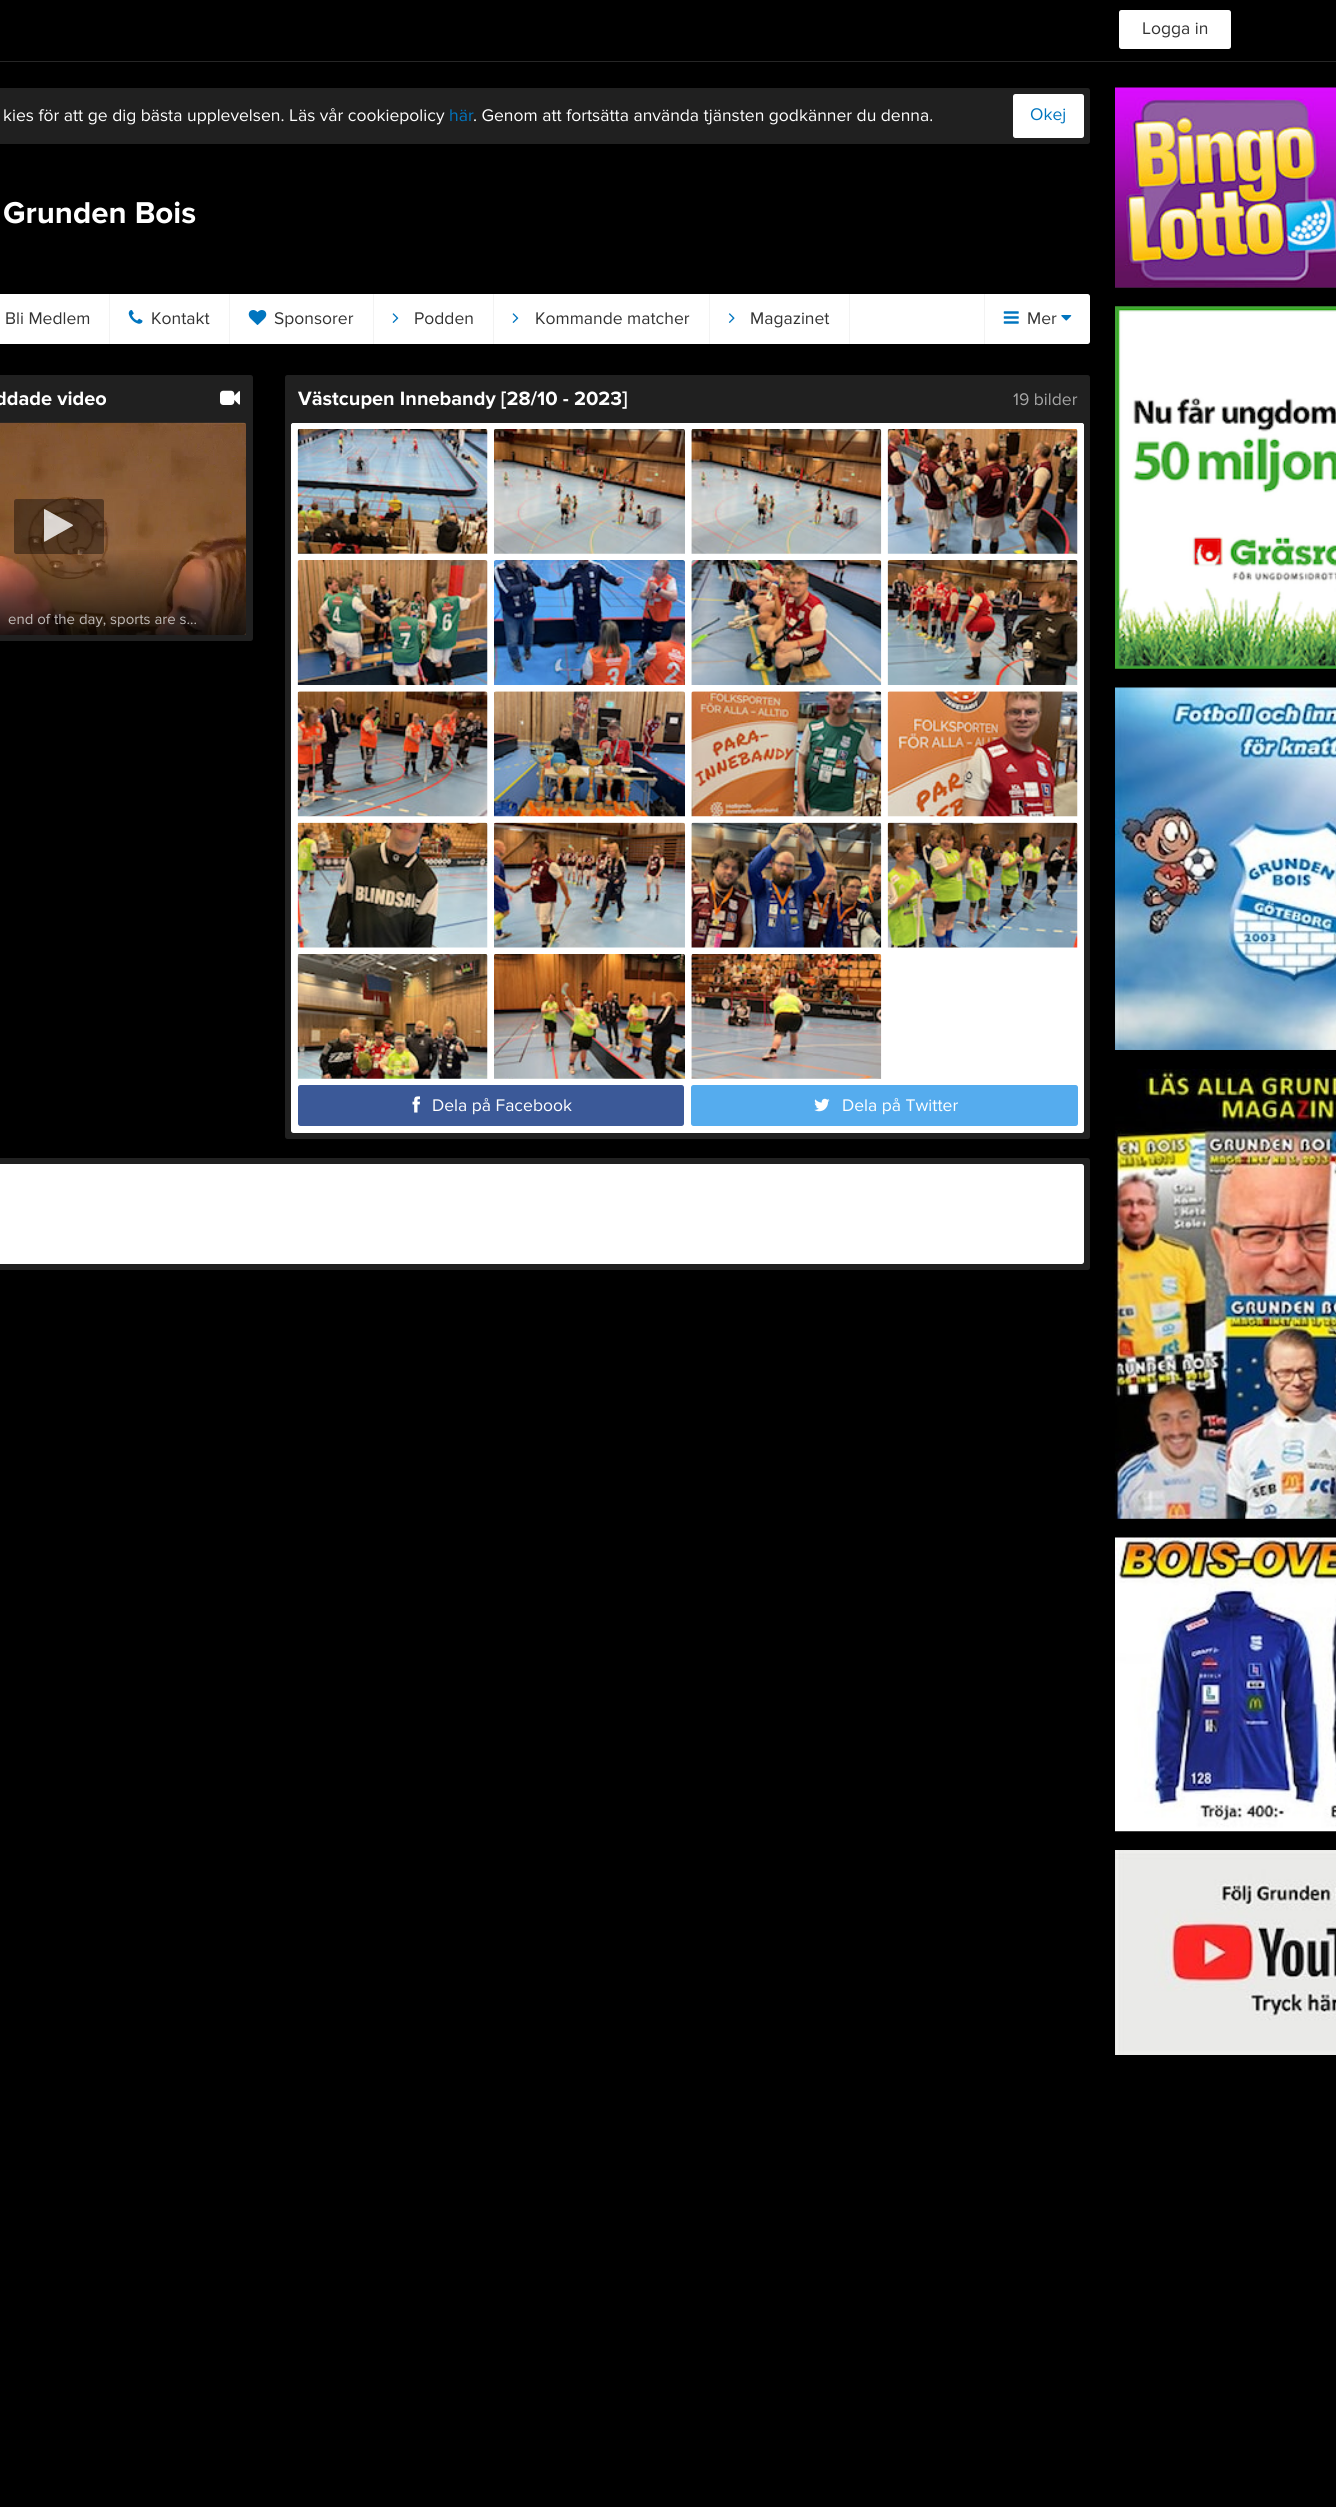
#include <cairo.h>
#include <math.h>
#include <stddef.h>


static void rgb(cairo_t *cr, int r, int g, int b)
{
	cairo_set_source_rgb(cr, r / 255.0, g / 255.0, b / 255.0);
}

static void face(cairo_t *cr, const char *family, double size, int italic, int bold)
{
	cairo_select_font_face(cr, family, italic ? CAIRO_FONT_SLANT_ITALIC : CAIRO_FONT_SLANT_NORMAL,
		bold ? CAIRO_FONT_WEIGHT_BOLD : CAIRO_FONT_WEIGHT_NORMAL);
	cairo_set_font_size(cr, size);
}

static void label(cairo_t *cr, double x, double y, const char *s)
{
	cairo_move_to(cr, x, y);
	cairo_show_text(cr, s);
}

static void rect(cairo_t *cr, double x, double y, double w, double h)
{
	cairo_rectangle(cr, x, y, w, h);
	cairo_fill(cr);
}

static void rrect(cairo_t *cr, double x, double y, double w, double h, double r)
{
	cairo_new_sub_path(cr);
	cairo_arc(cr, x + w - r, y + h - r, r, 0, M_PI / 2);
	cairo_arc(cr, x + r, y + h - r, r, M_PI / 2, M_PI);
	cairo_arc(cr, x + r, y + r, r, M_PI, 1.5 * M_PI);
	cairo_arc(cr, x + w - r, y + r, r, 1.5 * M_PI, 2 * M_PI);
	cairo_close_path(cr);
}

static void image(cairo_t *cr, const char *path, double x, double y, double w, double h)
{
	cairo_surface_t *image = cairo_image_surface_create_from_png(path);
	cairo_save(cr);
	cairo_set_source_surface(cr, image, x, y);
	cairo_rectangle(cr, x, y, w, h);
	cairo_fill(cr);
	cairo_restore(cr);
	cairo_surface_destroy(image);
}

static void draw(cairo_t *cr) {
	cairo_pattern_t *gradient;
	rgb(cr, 0, 0, 0);
	cairo_paint(cr);
	rgb(cr, 38, 38, 38);
	rect(cr, 0, 61, 1336, 1);
	rgb(cr, 255, 255, 255);
	rrect(cr, 1119, 10, 112, 39, 2.5);
	cairo_fill(cr);
	face(cr, "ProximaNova", 17.5, 0, 0);
	rgb(cr, 51, 51, 51);
	label(cr, 1142, 34, "Logga in");
	rgb(cr, 32, 32, 32);
	rrect(cr, -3, 88, 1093, 56, 2.5);
	cairo_fill(cr);
	rgb(cr, 255, 255, 255);
	label(cr, 3, 121, "kies för att ge dig bästa upplevelsen. Läs vår cookiepolicy");
	rgb(cr, 0, 117, 191);
	label(cr, 449, 121, "här");
	rgb(cr, 255, 255, 255);
	label(cr, 473, 121, ". Genom att fortsätta använda tjänsten godkänner du denna.");
	rrect(cr, 1013, 94, 71, 44, 2.5);
	cairo_fill(cr);
	rgb(cr, 0, 117, 191);
	label(cr, 1030, 120, "Okej");
	face(cr, "ProximaNova", 31.25, 0, 1);
	rgb(cr, 255, 255, 255);
	label(cr, 3, 223, "Grunden Bois");
	rrect(cr, -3, 294, 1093, 50, 2.5);
	cairo_fill(cr);
	rgb(cr, 243, 243, 243);
	rect(cr, 109, 294, 1, 50);
	face(cr, "ProximaNova", 17.5, 0, 0);
	rgb(cr, 51, 51, 51);
	label(cr, 5, 324, "Bli Medlem");
	rgb(cr, 243, 243, 243);
	rect(cr, 229, 294, 1, 50);
	image(cr, "image0.png", 128, 310, 15, 14);
	rgb(cr, 51, 51, 51);
	label(cr, 151, 324, "Kontakt");
	rgb(cr, 243, 243, 243);
	rect(cr, 373, 294, 1, 50);
	image(cr, "image1.png", 248, 310, 19, 15);
	rgb(cr, 51, 51, 51);
	label(cr, 274, 324, "Sponsorer");
	rgb(cr, 243, 243, 243);
	rect(cr, 493, 294, 1, 50);
	image(cr, "image2.png", 392, 313, 7, 10);
	rgb(cr, 51, 51, 51);
	label(cr, 414, 324, "Podden");
	rgb(cr, 243, 243, 243);
	rect(cr, 709, 294, 1, 50);
	image(cr, "image2.png", 512, 313, 7, 10);
	rgb(cr, 51, 51, 51);
	label(cr, 535, 324, "Kommande matcher");
	rgb(cr, 243, 243, 243);
	rect(cr, 849, 294, 1, 50);
	image(cr, "image3.png", 728, 313, 7, 10);
	rgb(cr, 51, 51, 51);
	label(cr, 750, 324, "Magazinet");
	rgb(cr, 243, 243, 243);
	rect(cr, 984, 294, 1, 50);
	image(cr, "image4.png", 1003, 311, 16, 13);
	rgb(cr, 51, 51, 51);
	label(cr, 1027, 324, "Mer");
	image(cr, "image5.png", 1061, 315, 11, 6);
	rgb(cr, 32, 32, 32);
	rrect(cr, -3, 375, 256, 266, 2.5);
	cairo_fill(cr);
	face(cr, "ProximaNova", 20, 0, 1);
	rgb(cr, 255, 255, 255);
	label(cr, -5, 405, "ddade video");
	image(cr, "image6.png", 220, 390, 20, 15);
	image(cr, "image7.png", 0, 422, 246, 213);
	cairo_set_source_rgba(cr, 0, 0, 0, 0.4);
	rrect(cr, 14, 499, 90, 55, 2.5);
	cairo_fill(cr);
	cairo_set_source_rgba(cr, 1, 1, 1, 0.8);
	cairo_new_path(cr);
	cairo_move_to(cr, 72.5, 526);
	cairo_line_to(cr, 49.5, 539);
	cairo_curve_to(cr, 49, 539, 44.5, 542.5, 44, 541.5);
	cairo_line_to(cr, 44, 509.5);
	cairo_line_to(cr, 44.5, 509);
	cairo_line_to(cr, 72.5, 524.5);
	cairo_line_to(cr, 73, 525.5);
	cairo_close_path(cr);
	cairo_fill(cr);
	gradient = cairo_pattern_create_linear(59, 528, 59, 635);
	cairo_pattern_add_color_stop_rgba(gradient, 0.2, 0, 0, 0, 0);
	cairo_pattern_add_color_stop_rgba(gradient, 1, 0, 0, 0, 0.8);
	cairo_set_source(cr, gradient);
	cairo_pattern_destroy(gradient);
	cairo_new_path(cr);
	cairo_move_to(cr, -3, 528);
	cairo_line_to(cr, 246, 528);
	cairo_line_to(cr, 246, 632.5);
	cairo_curve_to(cr, 246, 634, 245, 635, 243.5, 635);
	cairo_line_to(cr, -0.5, 635);
	cairo_curve_to(cr, -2, 635, -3, 634, -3, 632.5);
	cairo_close_path(cr);
	cairo_fill(cr);
	face(cr, "ProximaNova", 15, 0, 0);
	rgb(cr, 193, 188, 185);
	label(cr, 8, 624, "end of the day, sports are s...");
	rgb(cr, 32, 32, 32);
	rrect(cr, 285, 375, 805, 764, 2.5);
	cairo_fill(cr);
	face(cr, "ProximaNova", 20, 0, 1);
	rgb(cr, 255, 255, 255);
	label(cr, 298, 405, "Västcupen Innebandy [28/10 - 2023]");
	face(cr, "ProximaNova", 17.5, 0, 0);
	rgb(cr, 166, 166, 166);
	label(cr, 1013, 405, "19 bilder");
	rgb(cr, 255, 255, 255);
	rrect(cr, 291, 423, 793, 710, 2.5);
	cairo_fill(cr);
	rrect(cr, 291, 423, 793, 662, 2.5);
	cairo_fill(cr);
	image(cr, "image8.png", 297, 429, 191, 125);
	image(cr, "image9.png", 494, 429, 191, 125);
	image(cr, "image10.png", 691, 429, 191, 125);
	image(cr, "image11.png", 887, 429, 191, 125);
	image(cr, "image12.png", 297, 560, 191, 125);
	image(cr, "image13.png", 494, 560, 191, 125);
	image(cr, "image14.png", 691, 560, 191, 125);
	image(cr, "image15.png", 887, 560, 191, 125);
	image(cr, "image16.png", 297, 691, 191, 126);
	image(cr, "image17.png", 494, 691, 191, 126);
	image(cr, "image18.png", 691, 691, 191, 126);
	image(cr, "image19.png", 887, 691, 191, 126);
	image(cr, "image20.png", 297, 822, 191, 126);
	image(cr, "image21.png", 494, 822, 191, 126);
	image(cr, "image22.png", 691, 822, 191, 126);
	image(cr, "image23.png", 887, 822, 191, 126);
	image(cr, "image24.png", 297, 954, 191, 125);
	image(cr, "image25.png", 494, 954, 191, 125);
	image(cr, "image26.png", 691, 954, 191, 125);
	rgb(cr, 59, 89, 152);
	rrect(cr, 298, 1085, 386, 41, 2.5);
	cairo_fill(cr);
	image(cr, "image27.png", 412, 1096, 8, 17);
	rgb(cr, 255, 255, 255);
	label(cr, 432, 1111, "Dela på Facebook");
	rgb(cr, 85, 172, 238);
	rrect(cr, 691, 1085, 387, 41, 2.5);
	cairo_fill(cr);
	image(cr, "image28.png", 814, 1098, 16, 14);
	rgb(cr, 255, 255, 255);
	label(cr, 842, 1111, "Dela på Twitter");
	rgb(cr, 32, 32, 32);
	rrect(cr, -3, 1158, 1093, 112, 2.5);
	cairo_fill(cr);
	rgb(cr, 255, 255, 255);
	rrect(cr, -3, 1164, 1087, 100, 2.5);
	cairo_fill(cr);
	rgb(cr, 32, 32, 32);
	rect(cr, 1115, 287, 221, 1);
	image(cr, "image29.png", 1115, 87, 221, 201);
	image(cr, "image30.png", 1115, 306, 221, 363);
	image(cr, "image31.png", 1115, 687, 221, 363);
	image(cr, "image32.png", 1115, 1069, 221, 450);
	image(cr, "image33.png", 1115, 1537, 221, 295);
	image(cr, "image34.png", 1115, 1850, 221, 205);
}

int main(void) {
	cairo_surface_t *surface = cairo_image_surface_create(CAIRO_FORMAT_RGB24, 1336, 2507);
	cairo_t *cr = cairo_create(surface);
	cairo_font_options_t *options = cairo_font_options_create();
	cairo_font_options_set_hint_metrics(options, CAIRO_HINT_METRICS_OFF);
	cairo_font_options_set_hint_style(options, CAIRO_HINT_STYLE_NONE);
	cairo_set_font_options(cr, options);
	cairo_set_miter_limit(cr, 4);
	draw(cr);
	cairo_surface_write_to_png(surface, "render.png");
	cairo_font_options_destroy(options);
	cairo_destroy(cr);
	cairo_surface_destroy(surface);
	return 0;
}
